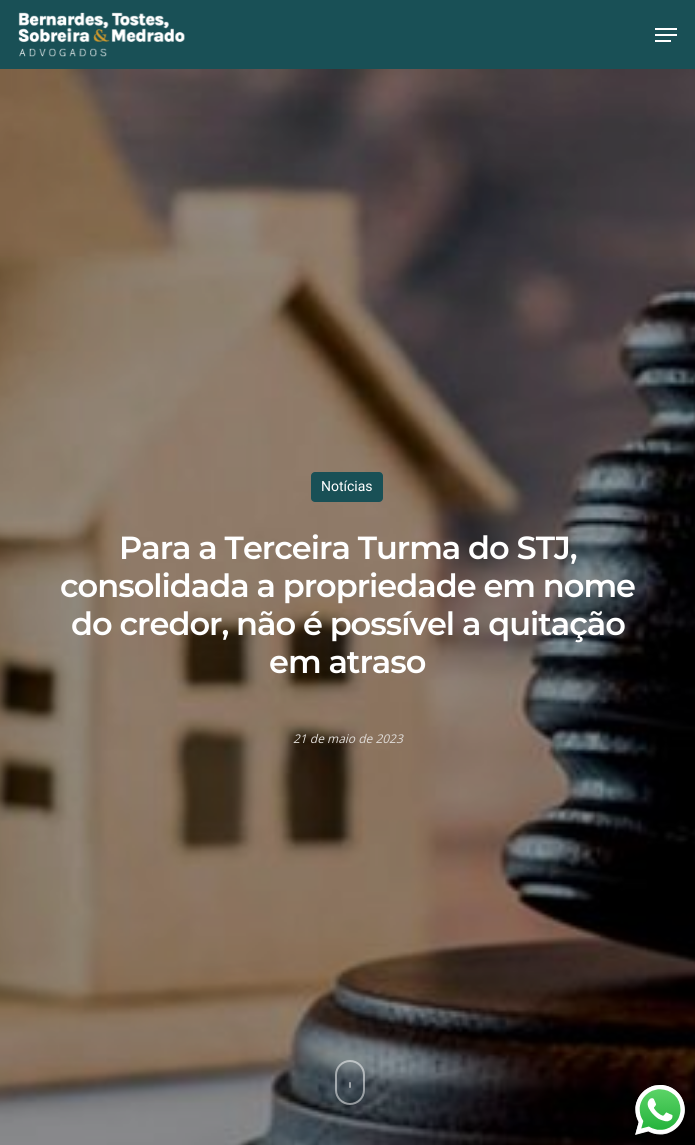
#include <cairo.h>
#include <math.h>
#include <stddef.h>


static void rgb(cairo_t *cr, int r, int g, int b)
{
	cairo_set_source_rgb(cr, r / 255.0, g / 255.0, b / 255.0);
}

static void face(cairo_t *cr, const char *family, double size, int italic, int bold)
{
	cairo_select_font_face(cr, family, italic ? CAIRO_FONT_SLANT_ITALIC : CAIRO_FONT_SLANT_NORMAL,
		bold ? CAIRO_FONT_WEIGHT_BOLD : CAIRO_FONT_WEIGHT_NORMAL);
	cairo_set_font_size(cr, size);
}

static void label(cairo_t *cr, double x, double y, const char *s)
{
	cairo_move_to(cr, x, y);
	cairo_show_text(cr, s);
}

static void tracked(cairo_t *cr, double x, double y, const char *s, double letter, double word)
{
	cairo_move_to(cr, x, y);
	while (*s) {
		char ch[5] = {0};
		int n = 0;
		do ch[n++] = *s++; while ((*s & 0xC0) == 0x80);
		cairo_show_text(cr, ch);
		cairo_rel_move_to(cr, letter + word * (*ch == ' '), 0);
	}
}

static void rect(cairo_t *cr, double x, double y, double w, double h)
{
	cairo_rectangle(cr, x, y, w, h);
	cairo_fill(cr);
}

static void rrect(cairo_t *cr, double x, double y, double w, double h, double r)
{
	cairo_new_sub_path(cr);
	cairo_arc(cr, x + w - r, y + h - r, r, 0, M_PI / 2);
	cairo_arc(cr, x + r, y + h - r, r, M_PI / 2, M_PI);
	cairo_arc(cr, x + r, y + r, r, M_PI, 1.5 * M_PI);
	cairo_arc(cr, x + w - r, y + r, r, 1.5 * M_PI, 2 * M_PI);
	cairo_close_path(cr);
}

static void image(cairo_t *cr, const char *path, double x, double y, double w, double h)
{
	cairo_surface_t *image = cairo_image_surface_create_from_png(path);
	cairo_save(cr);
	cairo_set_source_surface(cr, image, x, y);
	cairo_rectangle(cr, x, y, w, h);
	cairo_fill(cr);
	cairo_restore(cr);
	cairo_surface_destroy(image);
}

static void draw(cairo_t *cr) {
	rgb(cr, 25, 80, 86);
	cairo_paint(cr);
	image(cr, "image0.png", 18, 12, 167, 45);
	rgb(cr, 255, 255, 255);
	rect(cr, 655, 28, 22, 2);
	rect(cr, 655, 40, 16, 2);
	rect(cr, 655, 34, 22, 2);
	image(cr, "image1.png", 0, 69, 695, 1076);
	rgb(cr, 25, 80, 86);
	rrect(cr, 311, 472, 72, 30, 4);
	cairo_fill(cr);
	face(cr, "Roboto", 14, 0, 0);
	rgb(cr, 255, 255, 255);
	label(cr, 321, 491, "Notícias");
	face(cr, "Montserrat SemiBold", 32, 0, 0);
	tracked(cr, 119, 559, "Para a Terceira Turma do STJ,", -1, 0);
	tracked(cr, 60, 597, "consolidada a propriedade em nome", -1, 0);
	tracked(cr, 71, 635, "do credor, não é possível a quitação", -1, 0);
	tracked(cr, 269, 673, "em atraso", -1, 0);
	face(cr, "Open Sans", 12, 1, 0);
	rgb(cr, 224, 220, 216);
	label(cr, 293, 743, "21 de maio de 2023");
	cairo_set_source_rgba(cr, 1, 1, 1, 0.5);
	rrect(cr, 349, 1082, 2, 6, 1);
	cairo_fill(cr);
	rrect(cr, 336, 1061, 28, 43, 14);
	cairo_stroke(cr);
	image(cr, "image2.png", 635, 1085, 50, 50);
}

int main(void) {
	cairo_surface_t *surface = cairo_image_surface_create(CAIRO_FORMAT_RGB24, 695, 1145);
	cairo_t *cr = cairo_create(surface);
	cairo_font_options_t *options = cairo_font_options_create();
	cairo_font_options_set_hint_metrics(options, CAIRO_HINT_METRICS_OFF);
	cairo_font_options_set_hint_style(options, CAIRO_HINT_STYLE_NONE);
	cairo_set_font_options(cr, options);
	cairo_set_miter_limit(cr, 4);
	draw(cr);
	cairo_surface_write_to_png(surface, "render.png");
	cairo_font_options_destroy(options);
	cairo_destroy(cr);
	cairo_surface_destroy(surface);
	return 0;
}
